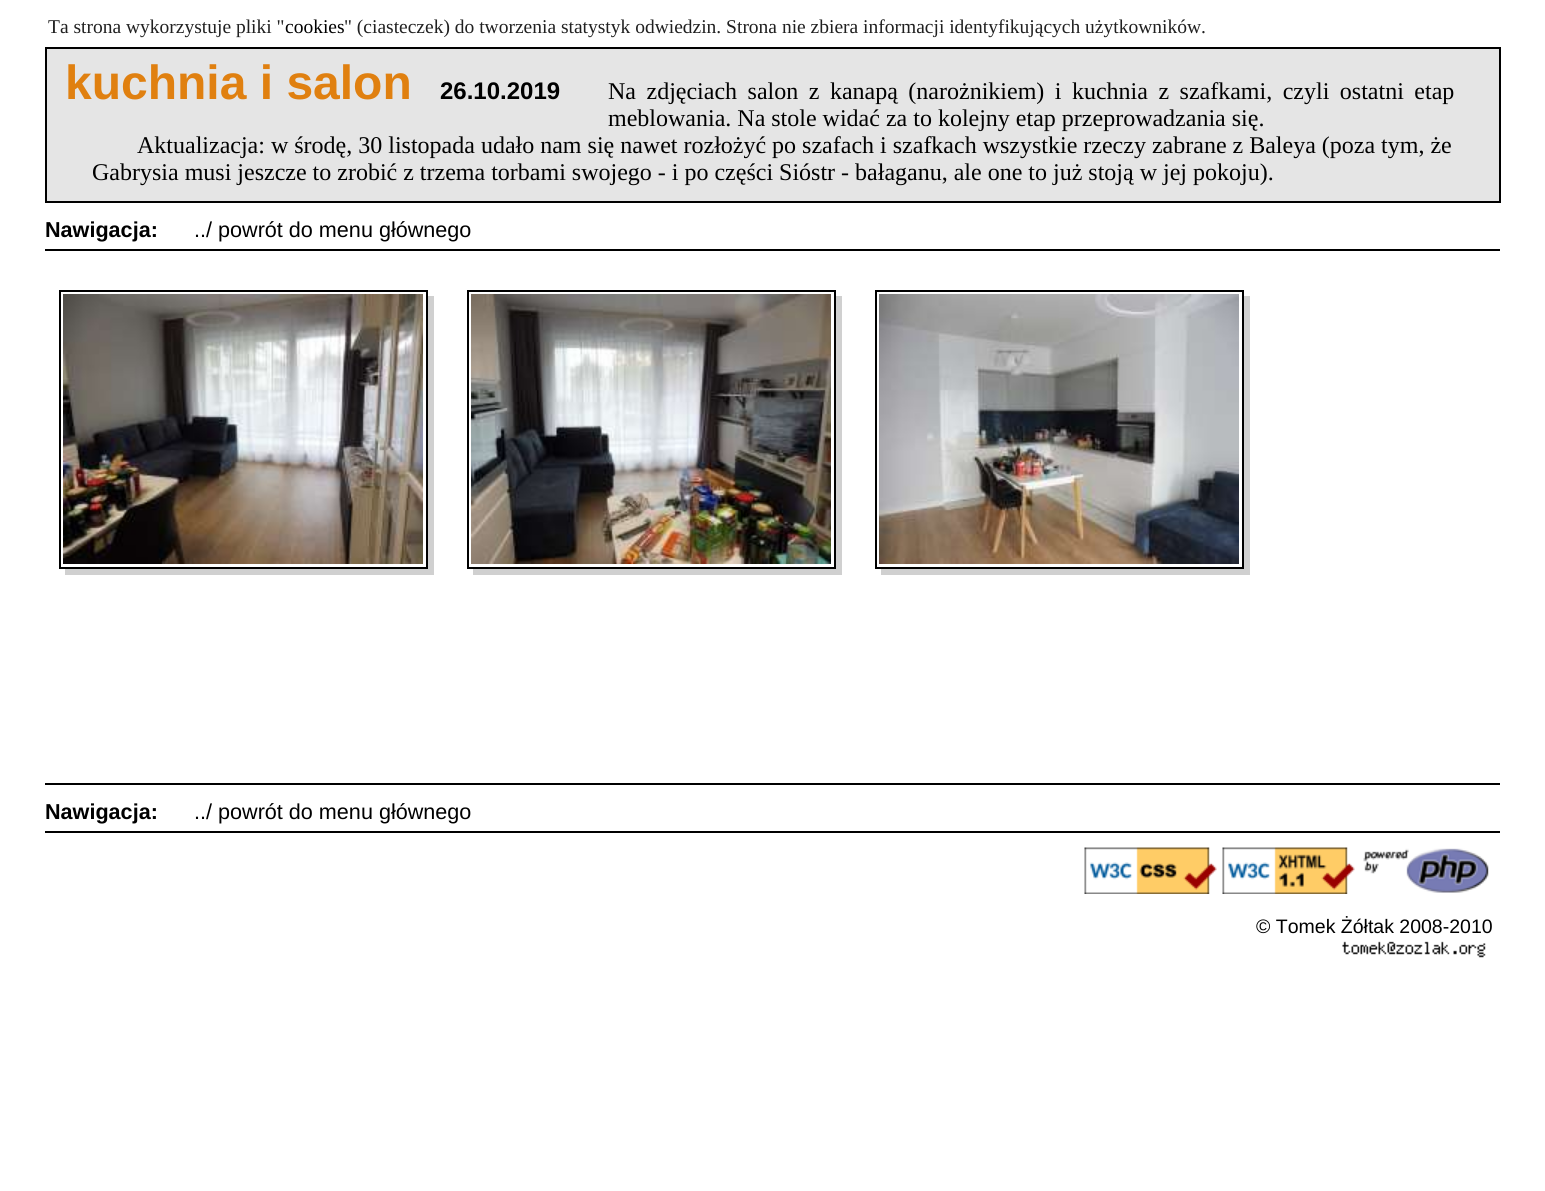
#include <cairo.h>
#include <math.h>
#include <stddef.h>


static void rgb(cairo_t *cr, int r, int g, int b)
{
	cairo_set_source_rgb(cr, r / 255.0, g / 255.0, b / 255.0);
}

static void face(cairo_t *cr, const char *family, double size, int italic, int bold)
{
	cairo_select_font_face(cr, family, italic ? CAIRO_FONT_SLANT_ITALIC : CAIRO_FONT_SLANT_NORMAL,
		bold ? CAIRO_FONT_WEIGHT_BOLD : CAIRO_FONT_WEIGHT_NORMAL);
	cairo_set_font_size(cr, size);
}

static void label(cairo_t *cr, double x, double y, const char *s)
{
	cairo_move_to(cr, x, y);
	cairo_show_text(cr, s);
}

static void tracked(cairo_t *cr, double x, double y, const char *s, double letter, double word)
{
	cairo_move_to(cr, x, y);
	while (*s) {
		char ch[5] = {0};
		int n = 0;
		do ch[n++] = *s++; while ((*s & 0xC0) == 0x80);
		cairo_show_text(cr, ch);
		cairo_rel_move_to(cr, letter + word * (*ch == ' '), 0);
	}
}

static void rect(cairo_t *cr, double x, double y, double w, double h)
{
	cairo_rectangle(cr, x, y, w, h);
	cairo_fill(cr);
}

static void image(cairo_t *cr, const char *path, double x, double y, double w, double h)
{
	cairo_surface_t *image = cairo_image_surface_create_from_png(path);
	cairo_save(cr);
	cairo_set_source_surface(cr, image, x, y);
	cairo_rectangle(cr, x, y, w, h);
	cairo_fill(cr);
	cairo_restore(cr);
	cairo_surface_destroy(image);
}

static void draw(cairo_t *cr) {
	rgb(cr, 255, 255, 255);
	cairo_paint(cr);
	face(cr, "Liberation Serif", 19.5, 0, 0);
	rgb(cr, 32, 32, 32);
	label(cr, 48, 33, "Ta strona wykorzystuje pliki \"");
	rgb(cr, 0, 0, 0);
	label(cr, 285, 33, "cookies");
	rgb(cr, 32, 32, 32);
	label(cr, 344, 33, "\" (ciasteczek) do tworzenia statystyk odwiedzin. Strona nie zbiera informacji identyfikujących użytkowników.");
	rgb(cr, 229, 229, 229);
	rect(cr, 47, 49, 1452, 152);
	rgb(cr, 0, 0, 0);
	rect(cr, 45, 47, 1455, 2);
	rect(cr, 1499, 47, 2, 156);
	rect(cr, 45, 201, 1455, 2);
	rect(cr, 45, 47, 2, 156);
	face(cr, "Liberation Sans", 48, 0, 1);
	rgb(cr, 224, 128, 16);
	label(cr, 65, 99, "kuchnia i salon");
	face(cr, "Liberation Sans", 24, 0, 1);
	rgb(cr, 0, 0, 0);
	label(cr, 440, 99, "26.10.2019");
	face(cr, "Liberation Serif", 24, 0, 0);
	tracked(cr, 608, 99, "Na zdjęciach salon z kanapą (narożnikiem) i kuchnia z szafkami, czyli ostatni etap", 0, 4.5);
	label(cr, 608, 126, "meblowania. Na stole widać za to kolejny etap przeprowadzania się.");
	label(cr, 137, 153, "Aktualizacja: w środę, 30 listopada udało nam się nawet rozłożyć po szafach i szafkach wszystkie rzeczy zabrane z Baleya (poza tym, że");
	label(cr, 92, 180, "Gabrysia musi jeszcze to zrobić z trzema torbami swojego - i po części Sióstr - bałaganu, ale one to już stoją w jej pokoju).");
	rect(cr, 45, 249, 1455, 2);
	face(cr, "Liberation Sans", 21.6, 0, 1);
	label(cr, 45, 237, "Nawigacja:");
	face(cr, "Liberation Sans", 21.6, 0, 0);
	label(cr, 194, 237, "../ powrót do menu głównego");
	rect(cr, 45, 783, 1455, 2);
	rgb(cr, 208, 208, 208);
	rect(cr, 65, 296, 369, 279);
	rgb(cr, 255, 255, 255);
	rect(cr, 65, 296, 361, 271);
	cairo_rectangle(cr, 60, 291, 367, 277);
	rgb(cr, 0, 0, 0);
	cairo_stroke(cr);
	image(cr, "image0.png", 63, 294, 360, 270);
	rgb(cr, 208, 208, 208);
	rect(cr, 473, 296, 369, 279);
	rgb(cr, 255, 255, 255);
	rect(cr, 473, 296, 361, 271);
	cairo_rectangle(cr, 468, 291, 367, 277);
	rgb(cr, 0, 0, 0);
	cairo_stroke(cr);
	image(cr, "image1.png", 471, 294, 360, 270);
	rgb(cr, 208, 208, 208);
	rect(cr, 881, 296, 369, 279);
	rgb(cr, 255, 255, 255);
	rect(cr, 881, 296, 361, 271);
	cairo_rectangle(cr, 876, 291, 367, 277);
	rgb(cr, 0, 0, 0);
	cairo_stroke(cr);
	image(cr, "image2.png", 879, 294, 360, 270);
	rect(cr, 45, 831, 1455, 2);
	face(cr, "Liberation Sans", 21.6, 0, 1);
	label(cr, 45, 819, "Nawigacja:");
	face(cr, "Liberation Sans", 21.6, 0, 0);
	label(cr, 194, 819, "../ powrót do menu głównego");
	image(cr, "image3.png", 1084, 847, 133, 47);
	image(cr, "image4.png", 1222, 847, 133, 47);
	image(cr, "image5.png", 1363, 848, 126, 45);
	face(cr, "Liberation Sans", 19.5, 0, 0);
	label(cr, 1256, 933, "© Tomek Żółtak 2008-2010");
	image(cr, "image6.png", 1342, 941, 144, 17);
}

int main(void) {
	cairo_surface_t *surface = cairo_image_surface_create(CAIRO_FORMAT_RGB24, 1545, 1191);
	cairo_t *cr = cairo_create(surface);
	cairo_font_options_t *options = cairo_font_options_create();
	cairo_font_options_set_hint_metrics(options, CAIRO_HINT_METRICS_OFF);
	cairo_font_options_set_hint_style(options, CAIRO_HINT_STYLE_NONE);
	cairo_set_font_options(cr, options);
	cairo_set_miter_limit(cr, 4);
	draw(cr);
	cairo_surface_write_to_png(surface, "render.png");
	cairo_font_options_destroy(options);
	cairo_destroy(cr);
	cairo_surface_destroy(surface);
	return 0;
}
